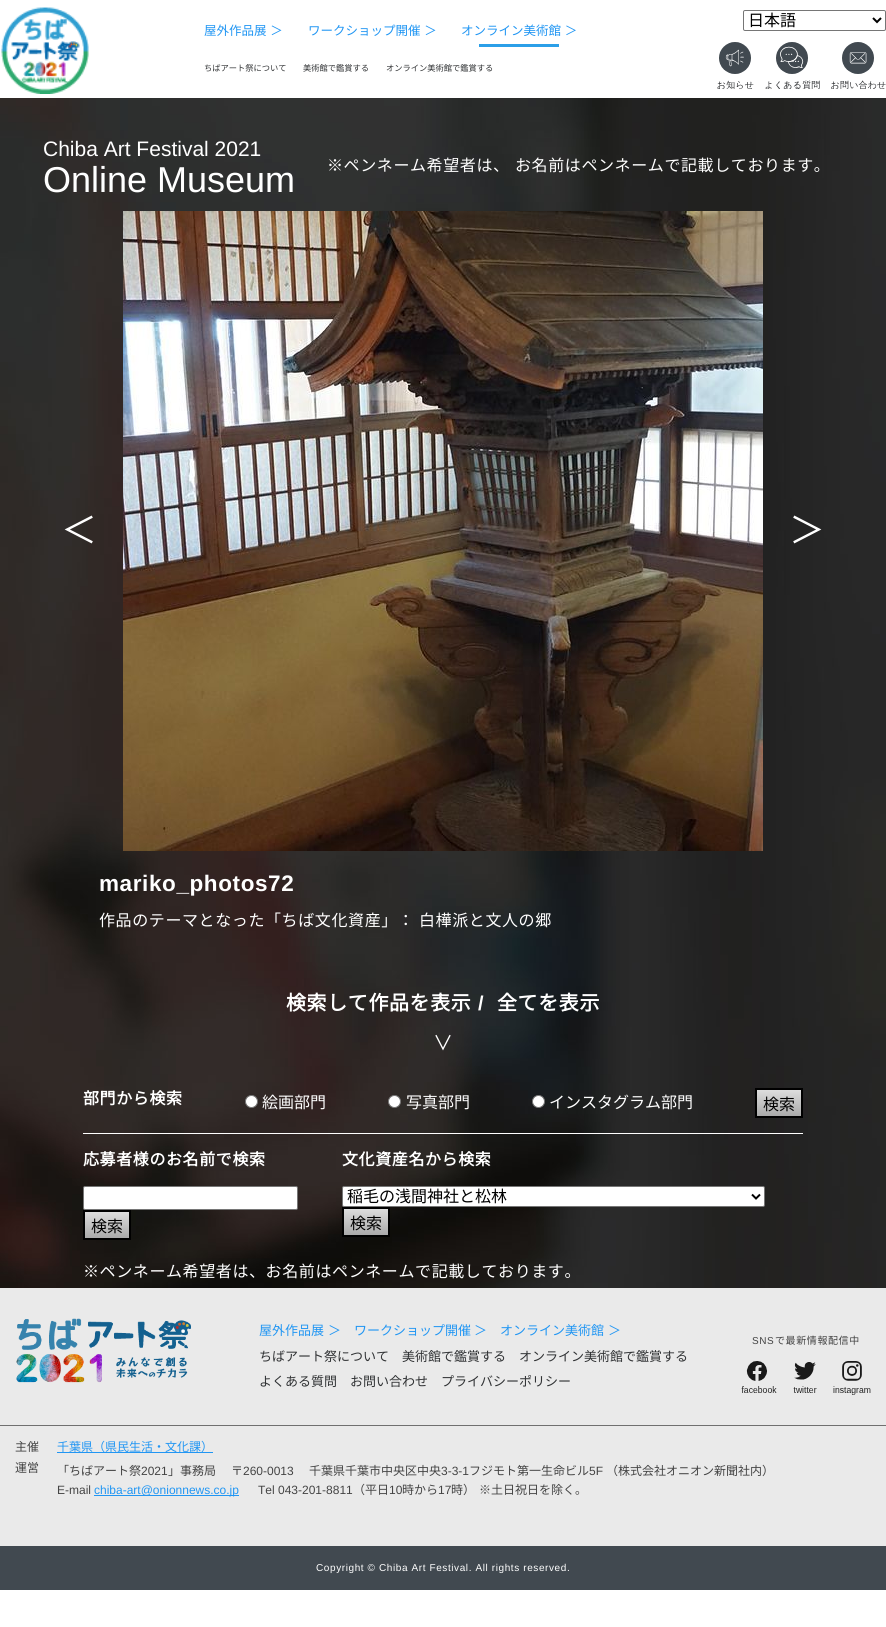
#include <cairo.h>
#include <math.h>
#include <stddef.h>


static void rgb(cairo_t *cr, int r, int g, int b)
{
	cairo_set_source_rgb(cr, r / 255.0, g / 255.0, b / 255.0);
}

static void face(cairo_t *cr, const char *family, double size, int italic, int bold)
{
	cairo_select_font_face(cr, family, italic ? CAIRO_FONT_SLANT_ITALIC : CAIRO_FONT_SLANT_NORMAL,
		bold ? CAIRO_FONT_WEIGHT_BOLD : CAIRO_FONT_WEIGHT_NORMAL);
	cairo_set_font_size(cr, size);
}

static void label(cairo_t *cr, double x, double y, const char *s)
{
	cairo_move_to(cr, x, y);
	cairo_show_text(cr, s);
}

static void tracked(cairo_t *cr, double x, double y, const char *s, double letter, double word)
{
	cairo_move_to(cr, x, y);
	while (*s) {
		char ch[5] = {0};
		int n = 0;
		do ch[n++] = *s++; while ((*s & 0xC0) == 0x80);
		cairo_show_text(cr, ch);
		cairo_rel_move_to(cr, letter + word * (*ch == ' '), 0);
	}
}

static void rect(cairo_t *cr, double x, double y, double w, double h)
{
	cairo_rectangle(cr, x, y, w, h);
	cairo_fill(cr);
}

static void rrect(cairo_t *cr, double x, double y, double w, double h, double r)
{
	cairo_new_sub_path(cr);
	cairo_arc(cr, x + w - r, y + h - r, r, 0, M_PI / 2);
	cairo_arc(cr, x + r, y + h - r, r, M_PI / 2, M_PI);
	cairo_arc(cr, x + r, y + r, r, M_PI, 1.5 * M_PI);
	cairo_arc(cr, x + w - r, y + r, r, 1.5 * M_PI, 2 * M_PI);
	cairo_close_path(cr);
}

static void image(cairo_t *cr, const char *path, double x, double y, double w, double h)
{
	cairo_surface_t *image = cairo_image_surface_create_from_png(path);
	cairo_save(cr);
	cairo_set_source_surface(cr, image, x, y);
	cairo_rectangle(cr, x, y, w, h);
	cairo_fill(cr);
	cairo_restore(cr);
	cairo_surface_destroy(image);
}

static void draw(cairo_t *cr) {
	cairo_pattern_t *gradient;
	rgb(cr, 255, 255, 255);
	cairo_paint(cr);
	image(cr, "image0.png", 1, 7, 88, 87);
	rrect(cr, 743.5, 10.5, 142, 20, 1.5);
	rgb(cr, 118, 118, 118);
	cairo_set_line_width(cr, 1);
	cairo_stroke(cr);
	cairo_new_path(cr);
	cairo_move_to(cr, 873, 18);
	cairo_line_to(cr, 877, 22);
	cairo_line_to(cr, 881, 18);
	rgb(cr, 0, 0, 0);
	cairo_set_line_width(cr, 2);
	cairo_stroke(cr);
	face(cr, "Noto Sans JP Thin", 16, 0, 0);
	label(cr, 748, 26, "日本語");
	image(cr, "image1.png", 717, 42, 37, 47);
	image(cr, "image2.png", 765, 42, 55, 47);
	image(cr, "image3.png", 831, 42, 55, 47);
	face(cr, "Noto Sans JP Thin", 12.5, 0, 0);
	rgb(cr, 33, 150, 243);
	tracked(cr, 204, 35, "屋外作品展 ＞", 0, 1);
	tracked(cr, 308, 35, "ワークショップ開催 ＞", 0, 1);
	tracked(cr, 461, 35, "オンライン美術館 ＞", 0, 1);
	rgb(cr, 43, 159, 232);
	rect(cr, 479, 44, 80, 3);
	face(cr, "Noto Sans JP Thin", 8.25, 0, 0);
	rgb(cr, 48, 50, 52);
	label(cr, 204, 71, "ちばアート祭について");
	label(cr, 303, 71, "美術館で鑑賞する");
	label(cr, 386, 71, "オンライン美術館で鑑賞する");
	image(cr, "image4.png", 0, 98, 886, 1190);
	face(cr, "Liberation Sans", 21, 0, 0);
	rgb(cr, 255, 255, 255);
	label(cr, 43, 156, "Chiba Art Festival 2021");
	face(cr, "Liberation Sans", 36, 0, 0);
	label(cr, 43, 192, "Online Museum");
	face(cr, "Noto Sans JP Thin", 16, 0, 0);
	tracked(cr, 327, 171, "※ペンネーム希望者は、", 0.6, 0);
	tracked(cr, 515, 171, "お名前はペンネームで記載しております。", 0.6, 0);
	face(cr, "Noto Sans JP Thin", 36, 0, 0);
	label(cr, 61, 543, "＜");
	image(cr, "image5.png", 123, 211, 640, 640);
	label(cr, 789, 543, "＞");
	face(cr, "Liberation Sans", 22.5, 0, 1);
	tracked(cr, 99, 891, "mariko_photos72", 0.6, 0);
	face(cr, "Noto Sans JP Thin", 16, 0, 0);
	tracked(cr, 99, 926, "作品のテーマとなった「ちば文化資産」：", 0.6, 0);
	tracked(cr, 419, 926, "白樺派と文人の郷", 0.6, 0);
	face(cr, "Noto Sans JP", 20, 0, 1);
	tracked(cr, 286, 1010, "検索して作品を表示", 0.6, 0);
	face(cr, "Liberation Sans", 20, 0, 1);
	tracked(cr, 478, 1010, "/", 0.6, 0);
	face(cr, "Noto Sans JP", 20, 0, 1);
	tracked(cr, 497, 1010, "全てを表示", 0.6, 0);
	face(cr, "Noto Sans JP Thin", 20, 0, 0);
	tracked(cr, 433, 1050, "∨", 0.6, 0);
	rect(cr, 83, 1133, 720, 1);
	face(cr, "Noto Sans JP", 16, 0, 1);
	tracked(cr, 83, 1104, "部門から検索", 0.6, 0);
	cairo_new_path(cr);
	cairo_arc(cr, 251.5, 1101.5, 6, 0, 2 * M_PI);
	cairo_fill_preserve(cr);
	rgb(cr, 118, 118, 118);
	cairo_set_line_width(cr, 1);
	cairo_stroke(cr);
	face(cr, "Noto Sans JP Thin", 16, 0, 0);
	rgb(cr, 255, 255, 255);
	label(cr, 262, 1108, "絵画部門");
	cairo_new_path(cr);
	cairo_arc(cr, 394.5, 1101.5, 6, 0, 2 * M_PI);
	cairo_fill_preserve(cr);
	rgb(cr, 118, 118, 118);
	cairo_stroke(cr);
	rgb(cr, 255, 255, 255);
	label(cr, 406, 1108, "写真部門");
	cairo_new_path(cr);
	cairo_arc(cr, 538.5, 1101.5, 6, 0, 2 * M_PI);
	cairo_fill_preserve(cr);
	rgb(cr, 118, 118, 118);
	cairo_stroke(cr);
	rgb(cr, 255, 255, 255);
	label(cr, 549, 1108, "インスタグラム部門");
	gradient = cairo_pattern_create_linear(779, 1090, 779, 1116);
	cairo_pattern_add_color_stop_rgba(gradient, 0, 0.867, 0.867, 0.867, 1);
	cairo_pattern_add_color_stop_rgba(gradient, 1, 0.667, 0.667, 0.667, 1);
	cairo_set_source(cr, gradient);
	cairo_pattern_destroy(gradient);
	rect(cr, 757, 1090, 44, 26);
	cairo_rectangle(cr, 756, 1089, 46, 28);
	rgb(cr, 0, 0, 0);
	cairo_set_line_width(cr, 2);
	cairo_stroke(cr);
	label(cr, 763, 1110, "検索");
	face(cr, "Noto Sans JP", 16, 0, 1);
	rgb(cr, 255, 255, 255);
	tracked(cr, 83, 1165, "応募者様のお名前で検索", 0.6, 0);
	rrect(cr, 83.5, 1186.5, 214, 23, 1.5);
	cairo_fill_preserve(cr);
	rgb(cr, 118, 118, 118);
	cairo_set_line_width(cr, 1);
	cairo_stroke(cr);
	gradient = cairo_pattern_create_linear(107, 1212, 107, 1238);
	cairo_pattern_add_color_stop_rgba(gradient, 0, 0.867, 0.867, 0.867, 1);
	cairo_pattern_add_color_stop_rgba(gradient, 1, 0.667, 0.667, 0.667, 1);
	cairo_set_source(cr, gradient);
	cairo_pattern_destroy(gradient);
	rect(cr, 85, 1212, 44, 26);
	cairo_rectangle(cr, 84, 1211, 46, 28);
	rgb(cr, 0, 0, 0);
	cairo_set_line_width(cr, 2);
	cairo_stroke(cr);
	face(cr, "Noto Sans JP Thin", 16, 0, 0);
	label(cr, 91, 1232, "検索");
	face(cr, "Noto Sans JP", 16, 0, 1);
	rgb(cr, 255, 255, 255);
	tracked(cr, 342, 1165, "文化資産名から検索", 0.6, 0);
	rrect(cr, 342.5, 1186.5, 422, 20, 1.5);
	cairo_fill_preserve(cr);
	rgb(cr, 118, 118, 118);
	cairo_set_line_width(cr, 1);
	cairo_stroke(cr);
	cairo_new_path(cr);
	cairo_move_to(cr, 752, 1194.5);
	cairo_line_to(cr, 756, 1198.5);
	cairo_line_to(cr, 760, 1194.5);
	rgb(cr, 0, 0, 0);
	cairo_set_line_width(cr, 2);
	cairo_stroke(cr);
	face(cr, "Noto Sans JP Thin", 16, 0, 0);
	label(cr, 347, 1202, "稲毛の浅間神社と松林");
	gradient = cairo_pattern_create_linear(366, 1209, 366, 1235);
	cairo_pattern_add_color_stop_rgba(gradient, 0, 0.867, 0.867, 0.867, 1);
	cairo_pattern_add_color_stop_rgba(gradient, 1, 0.667, 0.667, 0.667, 1);
	cairo_set_source(cr, gradient);
	cairo_pattern_destroy(gradient);
	rect(cr, 344, 1209, 44, 26);
	cairo_rectangle(cr, 343, 1208, 46, 28);
	rgb(cr, 0, 0, 0);
	cairo_stroke(cr);
	label(cr, 350, 1229, "検索");
	rgb(cr, 255, 255, 255);
	tracked(cr, 83, 1277, "※ペンネーム希望者は、お名前はペンネームで記載しております。", 0.6, 0);
	rgb(cr, 234, 234, 234);
	rect(cr, 0, 1288, 886, 258);
	rgb(cr, 112, 112, 112);
	rect(cr, 0, 1425, 886, 1);
	image(cr, "image6.png", 16, 1318, 175, 65);
	face(cr, "Noto Sans JP Thin", 13, 0, 0);
	rgb(cr, 33, 150, 243);
	label(cr, 259, 1335, "屋外作品展");
	label(cr, 328, 1335, "＞");
	label(cr, 354, 1335, "ワークショップ開催");
	label(cr, 474, 1335, "＞");
	label(cr, 500, 1335, "オンライン美術館");
	label(cr, 608, 1335, "＞");
	rgb(cr, 48, 50, 52);
	label(cr, 259, 1361, "ちばアート祭について");
	label(cr, 402, 1361, "美術館で鑑賞する");
	label(cr, 519, 1361, "オンライン美術館で鑑賞する");
	label(cr, 259, 1386, "よくある質問");
	label(cr, 350, 1386, "お問い合わせ");
	label(cr, 441, 1386, "プライバシーポリシー");
	face(cr, "Liberation Sans", 10, 0, 0);
	rgb(cr, 68, 68, 68);
	tracked(cr, 752, 1344, "SNS", 0.6, 0);
	face(cr, "Noto Sans JP Thin", 10, 0, 0);
	tracked(cr, 775, 1344, "で最新情報配信中", 0.6, 0);
	image(cr, "image7.png", 741, 1361, 36, 32);
	image(cr, "image8.png", 793, 1362, 24, 31);
	image(cr, "image9.png", 833, 1361, 38, 34);
	face(cr, "Noto Sans JP Thin", 12, 0, 0);
	label(cr, 15, 1451, "主催");
	rgb(cr, 33, 150, 243);
	rect(cr, 57, 1452, 156, 1);
	label(cr, 57, 1451, "千葉県（県民生活・文化課）");
	rgb(cr, 68, 68, 68);
	label(cr, 15, 1472, "運営");
	label(cr, 57, 1475, "「ちばアート祭");
	face(cr, "Liberation Sans", 12, 0, 0);
	label(cr, 141, 1475, "2021");
	face(cr, "Noto Sans JP Thin", 12, 0, 0);
	label(cr, 168, 1475, "」事務局");
	label(cr, 231, 1475, "〒");
	face(cr, "Liberation Sans", 12, 0, 0);
	label(cr, 243, 1475, "260-0013");
	face(cr, "Noto Sans JP Thin", 12, 0, 0);
	label(cr, 309, 1475, "千葉県千葉市中央区中央");
	face(cr, "Liberation Sans", 12, 0, 0);
	label(cr, 441, 1475, "3-3-1");
	face(cr, "Noto Sans JP Thin", 12, 0, 0);
	label(cr, 469, 1475, "フジモト第一生命ビル");
	face(cr, "Liberation Sans", 12, 0, 0);
	label(cr, 589, 1475, "5F");
	face(cr, "Noto Sans JP Thin", 12, 0, 0);
	label(cr, 606, 1475, "（株式会社オニオン新聞社内）");
	face(cr, "Liberation Sans", 12, 0, 0);
	label(cr, 57, 1494, "E-mail");
	rgb(cr, 33, 150, 243);
	rect(cr, 94, 1495, 145, 1);
	label(cr, 94, 1494, "chiba-art@onionnews.co.jp");
	rgb(cr, 68, 68, 68);
	label(cr, 258, 1494, "Tel 043-201-8811");
	face(cr, "Noto Sans JP Thin", 12, 0, 0);
	label(cr, 353, 1494, "（平日");
	face(cr, "Liberation Sans", 12, 0, 0);
	label(cr, 389, 1494, "10");
	face(cr, "Noto Sans JP Thin", 12, 0, 0);
	label(cr, 402, 1494, "時から");
	face(cr, "Liberation Sans", 12, 0, 0);
	label(cr, 438, 1494, "17");
	face(cr, "Noto Sans JP Thin", 12, 0, 0);
	label(cr, 451, 1494, "時）");
	label(cr, 479, 1494, "※土日祝日を除く。");
	rgb(cr, 65, 73, 80);
	rect(cr, 0, 1546, 886, 44);
	face(cr, "Liberation Sans", 10, 0, 0);
	rgb(cr, 255, 255, 255);
	tracked(cr, 316, 1571, "Copyright © Chiba Art Festival. All rights reserved.", 0.6, 0);
}

int main(void) {
	cairo_surface_t *surface = cairo_image_surface_create(CAIRO_FORMAT_RGB24, 886, 1627);
	cairo_t *cr = cairo_create(surface);
	cairo_font_options_t *options = cairo_font_options_create();
	cairo_font_options_set_hint_metrics(options, CAIRO_HINT_METRICS_OFF);
	cairo_font_options_set_hint_style(options, CAIRO_HINT_STYLE_NONE);
	cairo_set_font_options(cr, options);
	cairo_set_miter_limit(cr, 4);
	draw(cr);
	cairo_surface_write_to_png(surface, "render.png");
	cairo_font_options_destroy(options);
	cairo_destroy(cr);
	cairo_surface_destroy(surface);
	return 0;
}
